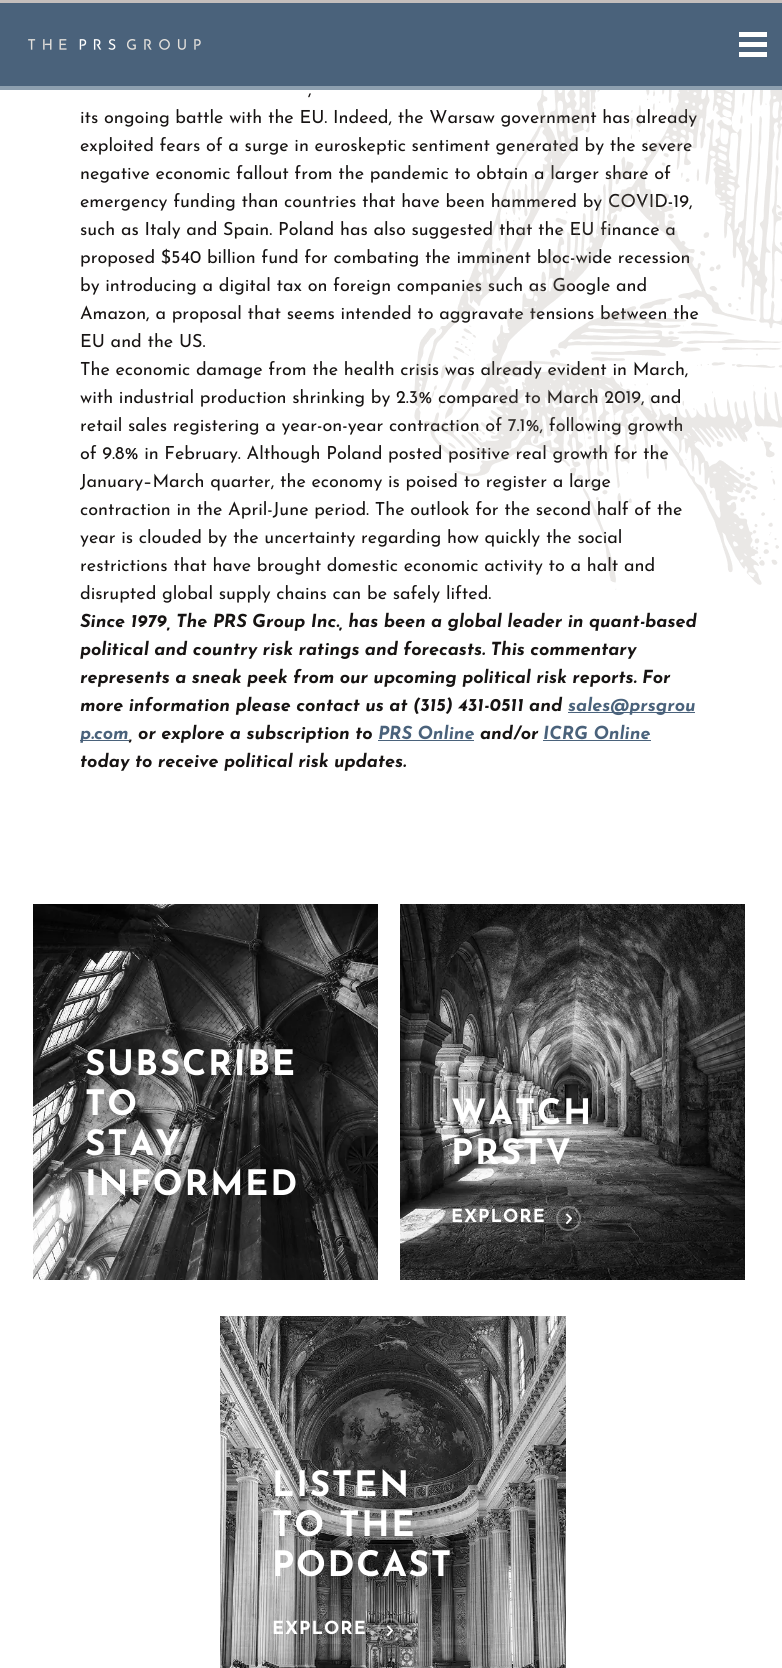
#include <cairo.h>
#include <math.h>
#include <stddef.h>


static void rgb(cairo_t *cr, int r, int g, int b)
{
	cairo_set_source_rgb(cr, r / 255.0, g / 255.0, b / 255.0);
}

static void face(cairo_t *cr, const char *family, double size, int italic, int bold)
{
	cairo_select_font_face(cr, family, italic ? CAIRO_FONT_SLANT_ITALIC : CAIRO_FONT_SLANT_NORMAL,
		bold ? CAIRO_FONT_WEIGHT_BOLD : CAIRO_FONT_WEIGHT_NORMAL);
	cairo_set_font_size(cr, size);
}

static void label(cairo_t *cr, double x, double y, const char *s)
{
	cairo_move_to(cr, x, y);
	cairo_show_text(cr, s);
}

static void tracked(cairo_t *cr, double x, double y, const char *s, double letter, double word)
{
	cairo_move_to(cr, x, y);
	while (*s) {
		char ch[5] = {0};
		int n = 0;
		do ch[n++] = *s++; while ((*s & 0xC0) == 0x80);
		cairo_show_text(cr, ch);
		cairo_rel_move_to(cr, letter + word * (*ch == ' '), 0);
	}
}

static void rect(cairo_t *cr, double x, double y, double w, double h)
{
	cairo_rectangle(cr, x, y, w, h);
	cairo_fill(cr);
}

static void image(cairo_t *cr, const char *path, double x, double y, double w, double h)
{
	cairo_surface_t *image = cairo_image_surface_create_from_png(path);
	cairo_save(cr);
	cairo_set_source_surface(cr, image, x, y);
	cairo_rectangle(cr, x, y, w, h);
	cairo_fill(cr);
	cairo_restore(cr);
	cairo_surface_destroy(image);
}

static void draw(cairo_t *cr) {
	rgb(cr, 255, 255, 255);
	cairo_paint(cr);
	rgb(cr, 74, 98, 123);
	rect(cr, 0, 3, 782, 83);
	rgb(cr, 196, 190, 188);
	rect(cr, 0, 0, 782, 3);
	rgb(cr, 141, 159, 175);
	rect(cr, 0, 86, 782, 4);
	image(cr, "image0.png", 28, 39, 173, 11);
	rgb(cr, 255, 255, 255);
	rect(cr, 739, 32, 28, 5);
	rect(cr, 739, 42, 28, 5);
	rect(cr, 739, 52, 28, 5);
	face(cr, "Josefin Sans", 18, 0, 0);
	rgb(cr, 23, 20, 19);
	label(cr, 80, 123, "its ongoing battle with the EU. Indeed, the Warsaw government has already");
	label(cr, 80, 151, "exploited fears of a surge in euroskeptic sentiment generated by the severe");
	label(cr, 80, 179, "negative economic fallout from the pandemic to obtain a larger share of");
	label(cr, 80, 207, "emergency funding than countries that have been hammered by COVID-19,");
	label(cr, 80, 235, "such as Italy and Spain. Poland has also suggested that the EU finance a");
	label(cr, 80, 263, "proposed $540 billion fund for combating the imminent bloc-wide recession");
	label(cr, 80, 291, "by introducing a digital tax on foreign companies such as Google and");
	label(cr, 80, 319, "Amazon, a proposal that seems intended to aggravate tensions between the");
	label(cr, 80, 375, "The economic damage from the health crisis was already evident in March,");
	label(cr, 80, 403, "with industrial production shrinking by 2.3% compared to March 2019, and");
	label(cr, 80, 431, "retail sales registering a year-on-year contraction of 7.1%, following growth");
	label(cr, 80, 459, "of 9.8% in February. Although Poland posted positive real growth for the");
	label(cr, 80, 487, "January–March quarter, the economy is poised to register a large");
	label(cr, 80, 515, "contraction in the April-June period. The outlook for the second half of the");
	label(cr, 80, 543, "year is clouded by the uncertainty regarding how quickly the social");
	label(cr, 80, 571, "restrictions that have brought domestic economic activity to a halt and");
	label(cr, 80, 599, "disrupted global supply chains can be safely lifted.");
	image(cr, "image1.png", 414, 90, 368, 500);
	label(cr, 308, 95, ",");
	label(cr, 80, 347, "EU and the US.");
	face(cr, "Josefin Sans", 18, 1, 1);
	label(cr, 80, 627, "Since 1979, The PRS Group Inc., has been a global leader in quant-based");
	label(cr, 80, 655, "political and country risk ratings and forecasts. This commentary");
	label(cr, 80, 683, "represents a sneak peek from our upcoming political risk reports. For");
	label(cr, 80, 711, "more information please contact us at (315) 431-0511 and");
	rgb(cr, 74, 98, 123);
	rect(cr, 568, 712, 127, 1);
	label(cr, 568, 711, "sales@prsgrou");
	rect(cr, 80, 740, 49, 1);
	label(cr, 80, 739, "p.com");
	rgb(cr, 23, 20, 19);
	label(cr, 129, 739, ", or explore a subscription to");
	rgb(cr, 74, 98, 123);
	label(cr, 378, 739, "PRS Online");
	rect(cr, 378, 740, 96, 1);
	rgb(cr, 23, 20, 19);
	label(cr, 480, 739, "and/or");
	rgb(cr, 74, 98, 123);
	label(cr, 543, 739, "ICRG Online");
	rect(cr, 543, 740, 108, 1);
	rgb(cr, 23, 20, 19);
	label(cr, 80, 767, "today to receive political risk updates.");
	image(cr, "image2.png", 33, 904, 345, 376);
	face(cr, "Josefin Sans", 35, 0, 1);
	rgb(cr, 255, 255, 255);
	tracked(cr, 85, 1075, "SUBSCRIBE", 1.75, 0);
	tracked(cr, 85, 1115, "TO", 1.75, 0);
	tracked(cr, 85, 1155, "STAY", 1.75, 0);
	tracked(cr, 85, 1195, "INFORMED", 1.75, 0);
	image(cr, "image3.png", 400, 904, 345, 376);
	tracked(cr, 451, 1124, "WATCH", 1.75, 0);
	tracked(cr, 451, 1164, "PRSTV", 1.75, 0);
	face(cr, "Josefin Sans", 18, 0, 1);
	tracked(cr, 451, 1222, "EXPLORE", 1, 0);
	cairo_new_path(cr);
	cairo_move_to(cr, 567, 1223);
	cairo_line_to(cr, 571, 1218.5);
	cairo_move_to(cr, 567, 1214.5);
	cairo_line_to(cr, 571, 1218.5);
	cairo_set_line_cap(cr, CAIRO_LINE_CAP_ROUND);
	cairo_stroke(cr);
	cairo_arc(cr, 568.5, 1218.5, 11.5, 0, 2 * M_PI);
	cairo_set_source_rgba(cr, 1, 1, 1, 0.3);
	cairo_set_line_cap(cr, CAIRO_LINE_CAP_BUTT);
	cairo_stroke(cr);
	image(cr, "image4.png", 220, 1316, 346, 352);
	face(cr, "Josefin Sans", 35, 0, 1);
	rgb(cr, 255, 255, 255);
	tracked(cr, 272, 1496, "LISTEN", 1.75, 0);
	tracked(cr, 272, 1536, "TO THE", 1.75, 0);
	tracked(cr, 272, 1576, "PODCAST", 1.75, 0);
	face(cr, "Josefin Sans", 18, 0, 1);
	tracked(cr, 272, 1634, "EXPLORE", 1, 0);
	cairo_new_path(cr);
	cairo_move_to(cr, 388, 1635);
	cairo_line_to(cr, 392, 1630.5);
	cairo_move_to(cr, 388, 1626.5);
	cairo_line_to(cr, 392, 1630.5);
	cairo_set_line_cap(cr, CAIRO_LINE_CAP_ROUND);
	cairo_stroke(cr);
	cairo_arc(cr, 389.5, 1630.5, 11.5, 0, 2 * M_PI);
	cairo_set_source_rgba(cr, 1, 1, 1, 0.3);
	cairo_set_line_cap(cr, CAIRO_LINE_CAP_BUTT);
	cairo_stroke(cr);
}

int main(void) {
	cairo_surface_t *surface = cairo_image_surface_create(CAIRO_FORMAT_RGB24, 782, 1668);
	cairo_t *cr = cairo_create(surface);
	cairo_font_options_t *options = cairo_font_options_create();
	cairo_font_options_set_hint_metrics(options, CAIRO_HINT_METRICS_OFF);
	cairo_font_options_set_hint_style(options, CAIRO_HINT_STYLE_NONE);
	cairo_set_font_options(cr, options);
	cairo_set_miter_limit(cr, 4);
	draw(cr);
	cairo_surface_write_to_png(surface, "render.png");
	cairo_font_options_destroy(options);
	cairo_destroy(cr);
	cairo_surface_destroy(surface);
	return 0;
}
